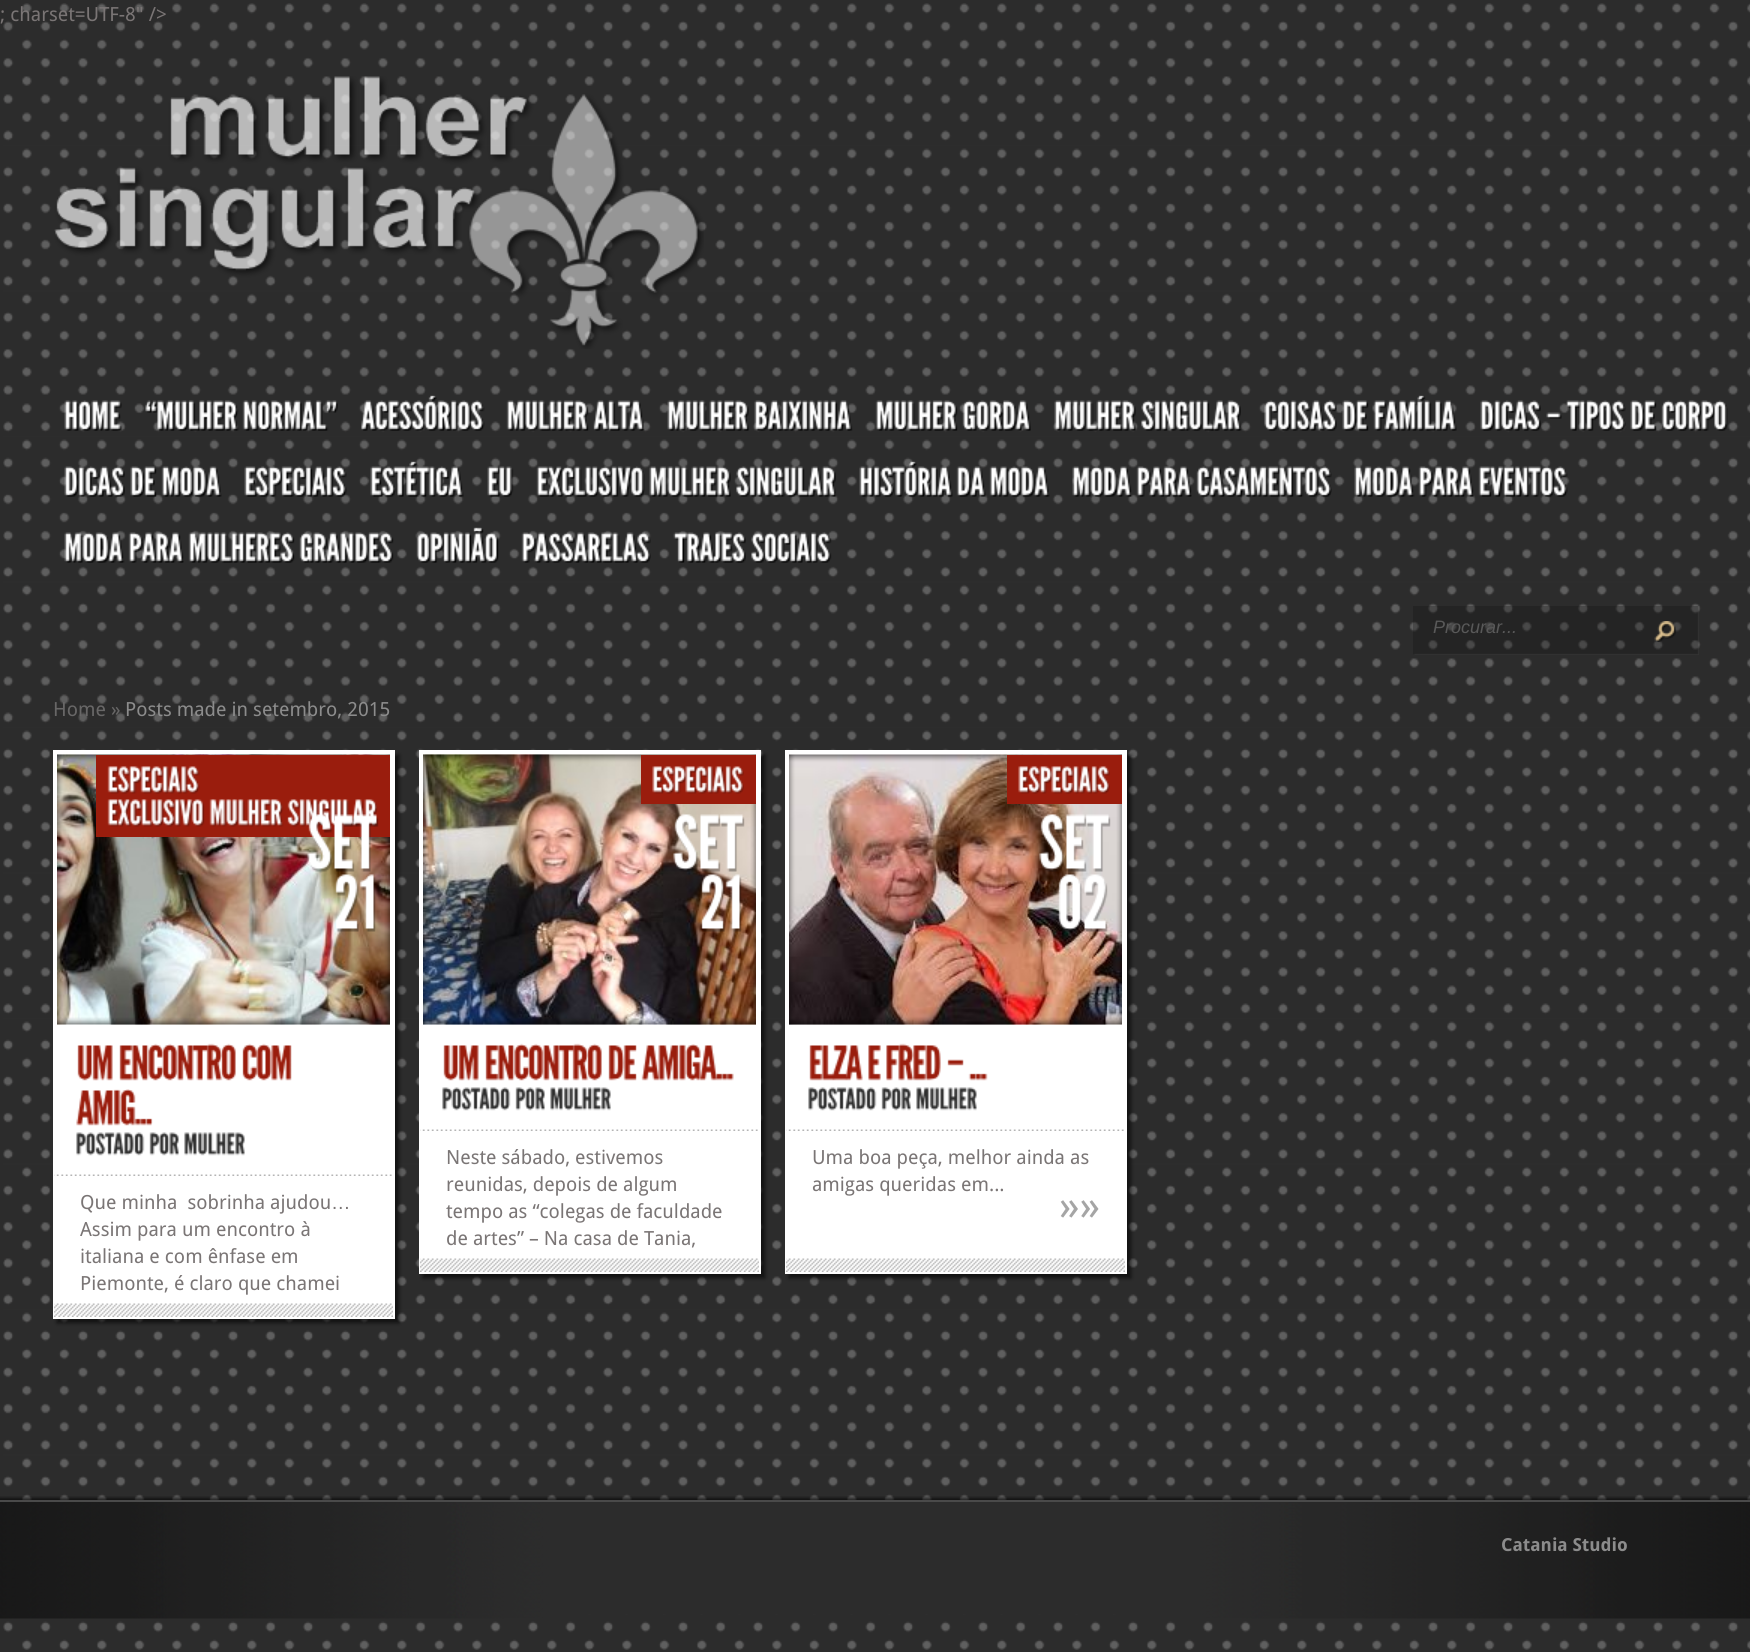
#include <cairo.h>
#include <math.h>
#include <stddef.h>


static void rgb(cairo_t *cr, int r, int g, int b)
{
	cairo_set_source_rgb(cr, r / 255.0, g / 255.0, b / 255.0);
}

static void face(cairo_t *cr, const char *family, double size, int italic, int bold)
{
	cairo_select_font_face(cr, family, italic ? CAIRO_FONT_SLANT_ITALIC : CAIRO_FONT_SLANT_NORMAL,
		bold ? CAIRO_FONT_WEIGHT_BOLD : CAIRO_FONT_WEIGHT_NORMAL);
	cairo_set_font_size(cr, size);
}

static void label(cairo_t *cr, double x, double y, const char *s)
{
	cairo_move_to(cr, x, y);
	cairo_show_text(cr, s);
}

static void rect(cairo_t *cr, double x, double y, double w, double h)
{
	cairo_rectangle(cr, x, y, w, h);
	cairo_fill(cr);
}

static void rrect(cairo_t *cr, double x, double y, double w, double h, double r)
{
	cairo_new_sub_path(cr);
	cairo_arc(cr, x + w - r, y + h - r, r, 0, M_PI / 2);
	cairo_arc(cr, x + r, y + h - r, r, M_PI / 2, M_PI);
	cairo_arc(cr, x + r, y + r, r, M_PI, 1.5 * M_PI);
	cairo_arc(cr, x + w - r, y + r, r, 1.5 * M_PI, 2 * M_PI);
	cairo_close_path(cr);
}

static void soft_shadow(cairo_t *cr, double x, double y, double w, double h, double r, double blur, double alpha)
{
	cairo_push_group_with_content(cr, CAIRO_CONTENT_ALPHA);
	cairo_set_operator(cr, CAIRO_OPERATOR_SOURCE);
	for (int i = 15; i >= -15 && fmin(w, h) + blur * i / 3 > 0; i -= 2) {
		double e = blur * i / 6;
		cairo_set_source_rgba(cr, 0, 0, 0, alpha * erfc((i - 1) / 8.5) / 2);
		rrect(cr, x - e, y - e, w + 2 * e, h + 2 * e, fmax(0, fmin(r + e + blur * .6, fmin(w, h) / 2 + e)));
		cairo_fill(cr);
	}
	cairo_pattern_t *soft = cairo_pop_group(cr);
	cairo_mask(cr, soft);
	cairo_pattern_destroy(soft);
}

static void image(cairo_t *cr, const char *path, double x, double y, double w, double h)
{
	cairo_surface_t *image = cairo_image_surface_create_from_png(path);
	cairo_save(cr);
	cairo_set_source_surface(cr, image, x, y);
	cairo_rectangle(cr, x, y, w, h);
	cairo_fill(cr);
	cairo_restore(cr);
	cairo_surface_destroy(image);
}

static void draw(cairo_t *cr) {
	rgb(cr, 44, 44, 44);
	cairo_paint(cr);
	image(cr, "image0.png", 3, 3, 1747, 1647);
	face(cr, "Droid Sans", 19.5, 0, 0);
	rgb(cr, 122, 117, 117);
	label(cr, 0, 21, "; charset=UTF-8\" />");
	image(cr, "image1.png", 54, 76, 650, 273);
	image(cr, "image2.png", 64, 400, 58, 31);
	image(cr, "image3.png", 145, 400, 94, 31);
	image(cr, "image4.png", 242, 400, 96, 31);
	image(cr, "image5.png", 361, 395, 124, 36);
	image(cr, "image6.png", 506, 400, 83, 31);
	image(cr, "image7.png", 593, 400, 52, 31);
	image(cr, "image8.png", 667, 400, 82, 31);
	image(cr, "image9.png", 754, 400, 99, 31);
	image(cr, "image10.png", 875, 400, 83, 31);
	image(cr, "image11.png", 962, 400, 69, 31);
	image(cr, "image12.png", 1054, 400, 82, 31);
	image(cr, "image13.png", 1141, 400, 101, 31);
	image(cr, "image14.png", 1264, 400, 73, 31);
	image(cr, "image15.png", 1342, 400, 27, 31);
	image(cr, "image16.png", 1373, 395, 84, 36);
	image(cr, "image17.png", 1480, 400, 61, 31);
	image(cr, "image18.png", 1546, 412, 16, 7);
	image(cr, "image19.png", 1566, 400, 60, 31);
	image(cr, "image20.png", 1630, 400, 27, 31);
	image(cr, "image21.png", 1661, 400, 67, 31);
	image(cr, "image22.png", 64, 466, 61, 31);
	image(cr, "image23.png", 130, 466, 27, 31);
	image(cr, "image24.png", 161, 466, 61, 31);
	image(cr, "image25.png", 244, 466, 103, 31);
	image(cr, "image26.png", 370, 461, 94, 36);
	image(cr, "image27.png", 487, 466, 27, 31);
	image(cr, "image28.png", 536, 466, 109, 31);
	image(cr, "image29.png", 649, 466, 82, 31);
	image(cr, "image30.png", 736, 466, 101, 31);
	image(cr, "image31.png", 859, 461, 94, 36);
	image(cr, "image32.png", 956, 466, 30, 31);
	image(cr, "image33.png", 989, 466, 61, 31);
	image(cr, "image34.png", 1072, 466, 61, 31);
	image(cr, "image35.png", 1136, 466, 56, 31);
	image(cr, "image36.png", 1196, 466, 136, 31);
	image(cr, "image37.png", 1354, 466, 61, 31);
	image(cr, "image38.png", 1418, 466, 56, 31);
	image(cr, "image39.png", 1478, 466, 90, 31);
	image(cr, "image40.png", 64, 532, 61, 31);
	image(cr, "image41.png", 128, 532, 56, 31);
	image(cr, "image42.png", 188, 532, 107, 31);
	image(cr, "image43.png", 299, 532, 95, 31);
	image(cr, "image44.png", 416, 527, 83, 36);
	image(cr, "image45.png", 521, 532, 130, 31);
	image(cr, "image46.png", 673, 532, 73, 31);
	image(cr, "image47.png", 751, 532, 81, 31);
	image(cr, "image48.png", 1413, 606, 286, 49);
	face(cr, "Liberation Sans", 18, 1, 0);
	rgb(cr, 89, 89, 89);
	label(cr, 1433, 633, "Procurar...");
	image(cr, "image49.png", 1654, 621, 22, 21);
	face(cr, "Droid Sans", 19.5, 0, 0);
	rgb(cr, 104, 103, 103);
	label(cr, 53, 716, "Home »");
	rgb(cr, 140, 140, 140);
	label(cr, 125, 716, "Posts made in setembro, 2015");
	rgb(cr, 0, 0, 0);
	soft_shadow(cr, 423, 755, 342, 523, 0, 2, 0.6);
	rgb(cr, 255, 255, 255);
	rect(cr, 419, 750, 342, 524);
	image(cr, "image50.png", 423, 754, 333, 271);
	image(cr, "image51.png", 423, 754, 333, 271);
	rgb(cr, 154, 29, 13);
	rect(cr, 641, 755, 115, 49);
	image(cr, "image52.png", 652, 766, 92, 28);
	image(cr, "image53.png", 673, 814, 72, 58);
	image(cr, "image54.png", 700, 874, 42, 58);
	image(cr, "image55.png", 443, 1045, 36, 36);
	image(cr, "image56.png", 485, 1043, 117, 38);
	image(cr, "image57.png", 608, 1045, 29, 36);
	image(cr, "image58.png", 641, 1044, 93, 37);
	image(cr, "image59.png", 442, 1087, 69, 24);
	image(cr, "image60.png", 515, 1087, 30, 24);
	image(cr, "image61.png", 550, 1087, 61, 24);
	image(cr, "image62.png", 420, 1258, 339, 14);
	image(cr, "image63.png", 420, 1129, 338, 2);
	rgb(cr, 122, 117, 117);
	label(cr, 446, 1164, "Neste sábado, estivemos");
	label(cr, 446, 1191, "reunidas, depois de algum");
	label(cr, 446, 1218, "tempo as “colegas de faculdade");
	label(cr, 446, 1245, "de artes” – Na casa de Tania,");
	rgb(cr, 0, 0, 0);
	soft_shadow(cr, 789, 755, 342, 523, 0, 2, 0.6);
	rgb(cr, 255, 255, 255);
	rect(cr, 785, 750, 342, 524);
	image(cr, "image64.png", 789, 754, 333, 271);
	image(cr, "image65.png", 789, 754, 333, 271);
	rgb(cr, 154, 29, 13);
	rect(cr, 1007, 755, 115, 49);
	image(cr, "image52.png", 1018, 766, 92, 28);
	image(cr, "image66.png", 1039, 814, 72, 58);
	image(cr, "image67.png", 1058, 874, 50, 58);
	image(cr, "image68.png", 809, 1045, 54, 36);
	image(cr, "image69.png", 868, 1045, 13, 36);
	image(cr, "image70.png", 886, 1043, 55, 38);
	image(cr, "image71.png", 947, 1059, 17, 7);
	image(cr, "image72.png", 968, 1073, 20, 8);
	image(cr, "image59.png", 808, 1087, 69, 24);
	image(cr, "image60.png", 881, 1087, 30, 24);
	image(cr, "image61.png", 916, 1087, 61, 24);
	image(cr, "image62.png", 786, 1258, 339, 14);
	image(cr, "image73.png", 786, 1129, 338, 2);
	rgb(cr, 122, 117, 117);
	label(cr, 812, 1164, "Uma boa peça, melhor ainda as");
	label(cr, 812, 1191, "amigas queridas em...");
	face(cr, "Droid Sans", 42, 0, 0);
	rgb(cr, 165, 165, 165);
	label(cr, 1059, 1220, "»»");
	rgb(cr, 0, 0, 0);
	soft_shadow(cr, 57, 755, 342, 568, 0, 2, 0.6);
	rgb(cr, 255, 255, 255);
	rect(cr, 53, 750, 342, 569);
	image(cr, "image74.png", 57, 754, 333, 271);
	image(cr, "image75.png", 57, 754, 333, 271);
	rgb(cr, 154, 29, 13);
	rect(cr, 96, 755, 294, 82);
	image(cr, "image76.png", 107, 766, 93, 28);
	image(cr, "image77.png", 107, 799, 98, 28);
	image(cr, "image78.png", 209, 799, 75, 28);
	image(cr, "image79.png", 287, 799, 91, 28);
	image(cr, "image80.png", 307, 814, 72, 59);
	image(cr, "image81.png", 335, 874, 41, 58);
	image(cr, "image55.png", 77, 1045, 36, 36);
	image(cr, "image56.png", 119, 1043, 117, 38);
	image(cr, "image82.png", 242, 1043, 50, 38);
	image(cr, "image83.png", 76, 1089, 77, 37);
	image(cr, "image59.png", 76, 1132, 69, 24);
	image(cr, "image60.png", 149, 1132, 30, 24);
	image(cr, "image61.png", 184, 1132, 61, 24);
	image(cr, "image62.png", 54, 1303, 339, 14);
	image(cr, "image84.png", 54, 1174, 338, 2);
	face(cr, "Droid Sans", 19.5, 0, 0);
	rgb(cr, 122, 117, 117);
	label(cr, 80, 1209, "Que minha  sobrinha ajudou");
	face(cr, "Liberation Sans", 19.5, 0, 0);
	label(cr, 331, 1209, "…");
	face(cr, "Droid Sans", 19.5, 0, 0);
	label(cr, 80, 1236, "Assim para um encontro à");
	label(cr, 80, 1263, "italiana e com ênfase em");
	label(cr, 80, 1290, "Piemonte, é claro que chamei");
	image(cr, "image85.png", 0, 1496, 1750, 4);
	rgb(cr, 74, 74, 74);
	rect(cr, 0, 1500, 1750, 2);
	rgb(cr, 44, 44, 44);
	rect(cr, 3, 1502, 1747, 112);
	image(cr, "image86.png", 0, 1502, 557, 117);
	image(cr, "image87.png", 1147, 1502, 603, 117);
	face(cr, "Droid Sans", 18, 0, 1);
	rgb(cr, 140, 140, 140);
	label(cr, 1501, 1551, "Catania Studio");
}

int main(void) {
	cairo_surface_t *surface = cairo_image_surface_create(CAIRO_FORMAT_RGB24, 1750, 1652);
	cairo_t *cr = cairo_create(surface);
	cairo_font_options_t *options = cairo_font_options_create();
	cairo_font_options_set_hint_metrics(options, CAIRO_HINT_METRICS_OFF);
	cairo_font_options_set_hint_style(options, CAIRO_HINT_STYLE_NONE);
	cairo_set_font_options(cr, options);
	cairo_set_miter_limit(cr, 4);
	draw(cr);
	cairo_surface_write_to_png(surface, "render.png");
	cairo_font_options_destroy(options);
	cairo_destroy(cr);
	cairo_surface_destroy(surface);
	return 0;
}
